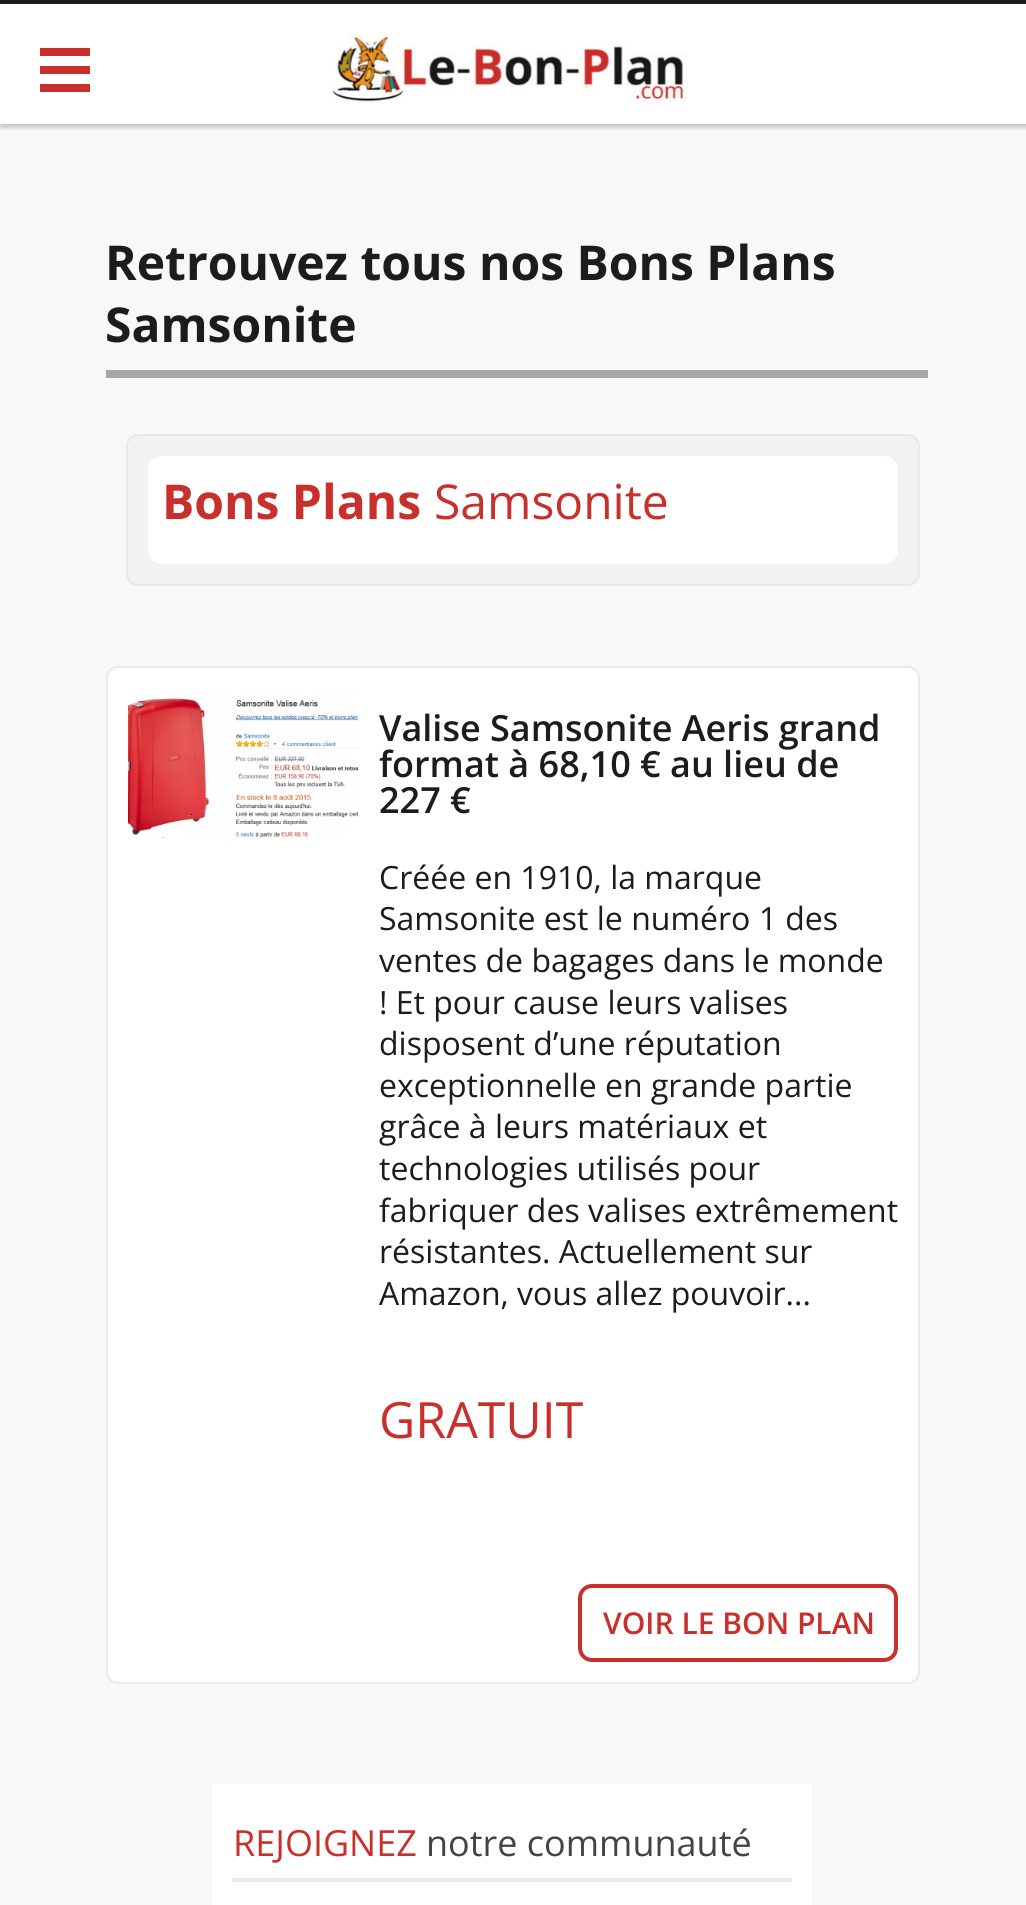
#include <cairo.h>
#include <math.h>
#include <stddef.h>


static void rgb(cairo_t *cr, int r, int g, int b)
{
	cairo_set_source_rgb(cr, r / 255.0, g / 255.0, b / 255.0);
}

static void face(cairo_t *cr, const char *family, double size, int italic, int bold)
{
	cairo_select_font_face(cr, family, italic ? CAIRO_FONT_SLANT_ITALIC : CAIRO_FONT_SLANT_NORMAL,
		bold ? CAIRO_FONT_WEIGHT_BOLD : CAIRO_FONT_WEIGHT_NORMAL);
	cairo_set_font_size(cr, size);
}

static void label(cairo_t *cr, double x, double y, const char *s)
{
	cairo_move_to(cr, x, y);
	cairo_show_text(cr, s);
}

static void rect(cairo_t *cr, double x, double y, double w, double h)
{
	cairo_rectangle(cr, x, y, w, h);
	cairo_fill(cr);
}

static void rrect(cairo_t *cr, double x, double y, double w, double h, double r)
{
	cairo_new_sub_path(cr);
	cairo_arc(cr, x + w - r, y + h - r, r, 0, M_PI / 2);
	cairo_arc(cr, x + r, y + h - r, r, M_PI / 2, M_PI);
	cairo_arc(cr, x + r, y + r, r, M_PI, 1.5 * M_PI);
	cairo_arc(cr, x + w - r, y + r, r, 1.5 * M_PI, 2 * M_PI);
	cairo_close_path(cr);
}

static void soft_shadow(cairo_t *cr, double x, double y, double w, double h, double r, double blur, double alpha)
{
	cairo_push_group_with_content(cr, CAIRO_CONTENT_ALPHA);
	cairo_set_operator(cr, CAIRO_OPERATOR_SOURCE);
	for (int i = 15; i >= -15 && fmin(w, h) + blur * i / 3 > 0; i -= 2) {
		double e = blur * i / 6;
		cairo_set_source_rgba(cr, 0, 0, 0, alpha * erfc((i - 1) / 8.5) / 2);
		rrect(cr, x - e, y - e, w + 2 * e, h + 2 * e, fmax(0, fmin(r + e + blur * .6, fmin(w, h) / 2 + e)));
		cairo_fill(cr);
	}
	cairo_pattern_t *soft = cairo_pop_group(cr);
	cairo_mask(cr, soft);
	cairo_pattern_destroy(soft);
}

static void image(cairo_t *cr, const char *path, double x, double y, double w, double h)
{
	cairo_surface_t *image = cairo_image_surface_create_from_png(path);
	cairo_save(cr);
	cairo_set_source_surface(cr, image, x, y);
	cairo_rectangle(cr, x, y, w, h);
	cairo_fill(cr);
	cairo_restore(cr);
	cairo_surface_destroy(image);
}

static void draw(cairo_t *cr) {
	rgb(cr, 248, 248, 248);
	cairo_paint(cr);
	rgb(cr, 166, 166, 166);
	soft_shadow(cr, 0, 4, 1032, 124, 0, 2, 0.6);
	rgb(cr, 255, 255, 255);
	rect(cr, 0, 4, 1026, 120);
	rgb(cr, 28, 28, 28);
	rect(cr, 0, 0, 1026, 4);
	rgb(cr, 201, 48, 44);
	rect(cr, 40, 48, 50, 8);
	rect(cr, 40, 66, 50, 8);
	rect(cr, 40, 84, 50, 8);
	image(cr, "image0.png", 332, 34, 353, 69);
	face(cr, "Open Sans", 48, 0, 1);
	rgb(cr, 28, 28, 28);
	label(cr, 105, 280, "Retrouvez tous nos Bons Plans");
	label(cr, 105, 342, "Samsonite");
	rgb(cr, 166, 166, 166);
	rect(cr, 106, 370, 822, 8);
	rgb(cr, 242, 242, 242);
	rrect(cr, 127, 435, 792, 150, 11);
	cairo_fill_preserve(cr);
	rgb(cr, 231, 233, 236);
	cairo_stroke(cr);
	rgb(cr, 255, 255, 255);
	rrect(cr, 148, 456, 750, 108, 14);
	cairo_fill(cr);
	rgb(cr, 201, 48, 44);
	label(cr, 162, 519, "Bons Plans");
	face(cr, "Open Sans", 48, 0, 0);
	label(cr, 434, 519, "Samsonite");
	rgb(cr, 255, 255, 255);
	rrect(cr, 107, 667, 812, 1016, 11);
	cairo_fill_preserve(cr);
	rgb(cr, 231, 233, 236);
	cairo_stroke(cr);
	image(cr, "image1.png", 128, 688, 230, 150);
	face(cr, "Open Sans SemiBold", 36, 0, 0);
	rgb(cr, 28, 28, 28);
	label(cr, 379, 741, "Valise Samsonite Aeris grand");
	label(cr, 379, 777, "format à 68,10 € au lieu de");
	label(cr, 379, 813, "227 €");
	face(cr, "Open Sans", 32, 0, 0);
	label(cr, 379, 889, "Créée en 1910, la marque");
	label(cr, 379, 930, "Samsonite est le numéro 1 des");
	label(cr, 379, 972, "ventes de bagages dans le monde");
	label(cr, 379, 1014, "! Et pour cause leurs valises");
	label(cr, 379, 1055, "disposent d’une réputation");
	label(cr, 379, 1097, "exceptionnelle en grande partie");
	label(cr, 379, 1138, "grâce à leurs matériaux et");
	label(cr, 379, 1180, "technologies utilisés pour");
	label(cr, 379, 1222, "fabriquer des valises extrêmement");
	label(cr, 379, 1263, "résistantes. Actuellement sur");
	label(cr, 379, 1305, "Amazon, vous allez pouvoir...");
	face(cr, "Open Sans", 50, 0, 0);
	rgb(cr, 201, 48, 44);
	label(cr, 379, 1438, "GRATUIT");
	rrect(cr, 580, 1586, 316, 74, 12);
	cairo_set_line_width(cr, 4);
	cairo_stroke(cr);
	face(cr, "Open Sans SemiBold", 30, 0, 0);
	label(cr, 603, 1634, "VOIR LE BON PLAN");
	rgb(cr, 255, 255, 255);
	rect(cr, 212, 1784, 600, 121);
	face(cr, "Open Sans", 36, 0, 0);
	rgb(cr, 201, 48, 44);
	label(cr, 233, 1856, "REJOIGNEZ");
	rgb(cr, 68, 68, 68);
	label(cr, 426, 1856, "notre communauté");
	rgb(cr, 230, 230, 230);
	rect(cr, 232, 1878, 560, 4);
}

int main(void) {
	cairo_surface_t *surface = cairo_image_surface_create(CAIRO_FORMAT_RGB24, 1026, 1905);
	cairo_t *cr = cairo_create(surface);
	cairo_font_options_t *options = cairo_font_options_create();
	cairo_font_options_set_hint_metrics(options, CAIRO_HINT_METRICS_OFF);
	cairo_font_options_set_hint_style(options, CAIRO_HINT_STYLE_NONE);
	cairo_set_font_options(cr, options);
	cairo_set_miter_limit(cr, 4);
	draw(cr);
	cairo_surface_write_to_png(surface, "render.png");
	cairo_font_options_destroy(options);
	cairo_destroy(cr);
	cairo_surface_destroy(surface);
	return 0;
}
